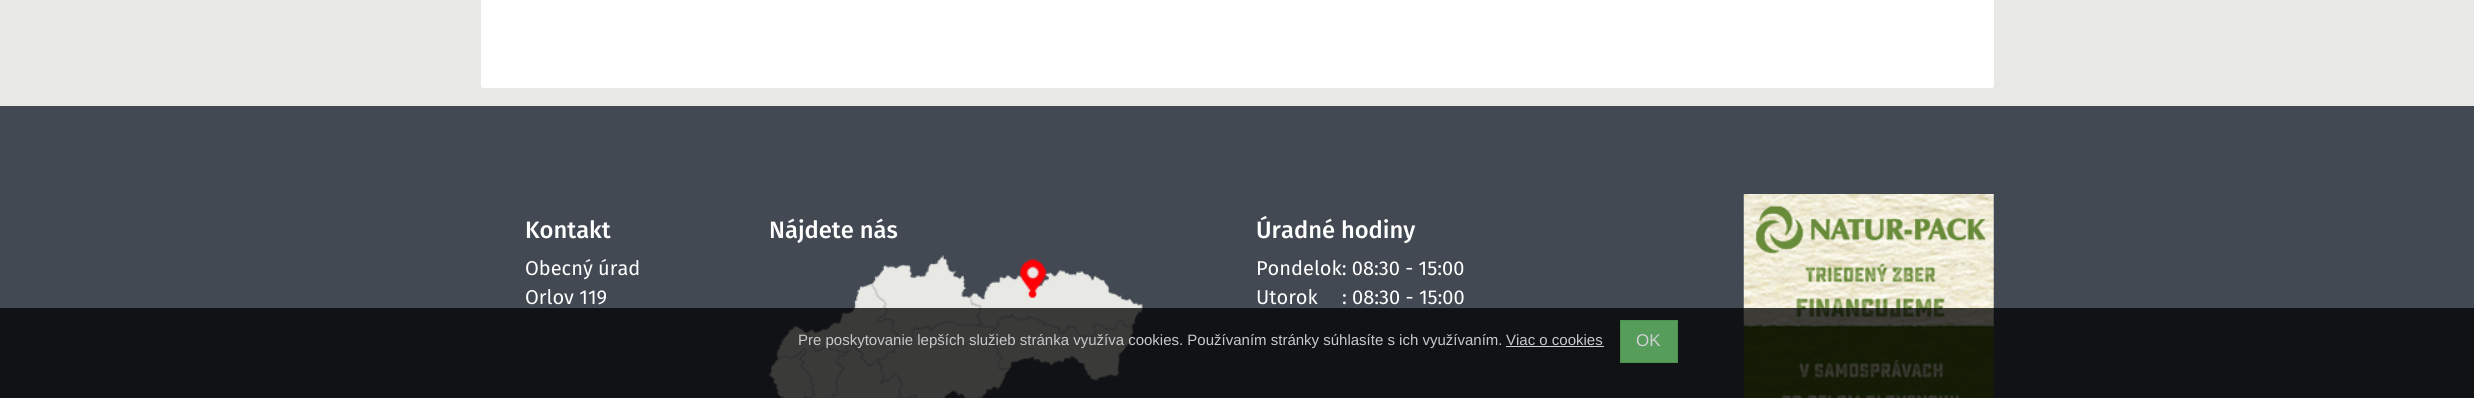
#include <cairo.h>
#include <math.h>
#include <stddef.h>


static void rgb(cairo_t *cr, int r, int g, int b)
{
	cairo_set_source_rgb(cr, r / 255.0, g / 255.0, b / 255.0);
}

static void face(cairo_t *cr, const char *family, double size, int italic, int bold)
{
	cairo_select_font_face(cr, family, italic ? CAIRO_FONT_SLANT_ITALIC : CAIRO_FONT_SLANT_NORMAL,
		bold ? CAIRO_FONT_WEIGHT_BOLD : CAIRO_FONT_WEIGHT_NORMAL);
	cairo_set_font_size(cr, size);
}

static void label(cairo_t *cr, double x, double y, const char *s)
{
	cairo_move_to(cr, x, y);
	cairo_show_text(cr, s);
}

static void rect(cairo_t *cr, double x, double y, double w, double h)
{
	cairo_rectangle(cr, x, y, w, h);
	cairo_fill(cr);
}

static void rrect(cairo_t *cr, double x, double y, double w, double h, double r)
{
	cairo_new_sub_path(cr);
	cairo_arc(cr, x + w - r, y + h - r, r, 0, M_PI / 2);
	cairo_arc(cr, x + r, y + h - r, r, M_PI / 2, M_PI);
	cairo_arc(cr, x + r, y + r, r, M_PI, 1.5 * M_PI);
	cairo_arc(cr, x + w - r, y + r, r, 1.5 * M_PI, 2 * M_PI);
	cairo_close_path(cr);
}

static void image(cairo_t *cr, const char *path, double x, double y, double w, double h)
{
	cairo_surface_t *image = cairo_image_surface_create_from_png(path);
	cairo_save(cr);
	cairo_set_source_surface(cr, image, x, y);
	cairo_rectangle(cr, x, y, w, h);
	cairo_fill(cr);
	cairo_restore(cr);
	cairo_surface_destroy(image);
}

static void draw(cairo_t *cr) {
	rgb(cr, 232, 232, 229);
	cairo_paint(cr);
	rgb(cr, 255, 255, 255);
	rrect(cr, 481, -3, 1513, 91, 2.5);
	cairo_fill(cr);
	rgb(cr, 66, 73, 82);
	rect(cr, 0, 106, 2474, 292);
	face(cr, "Fira Sans Medium", 23.75, 0, 0);
	rgb(cr, 255, 255, 255);
	label(cr, 525, 238, "Kontakt");
	face(cr, "Fira Sans", 20, 0, 0);
	label(cr, 525, 275, "Obecný úrad");
	label(cr, 525, 304, "Orlov 119");
	face(cr, "Fira Sans Medium", 23.75, 0, 0);
	label(cr, 769, 238, "Nájdete nás");
	image(cr, "image0.png", 768, 255, 375, 143);
	label(cr, 1256, 238, "Úradné hodiny");
	face(cr, "Fira Sans", 20, 0, 0);
	label(cr, 1256, 275, "Pondelok: 08:30 - 15:00");
	label(cr, 1256, 304, "Utorok");
	label(cr, 1342, 304, ": 08:30 - 15:00");
	image(cr, "image1.png", 1743, 194, 251, 204);
	cairo_set_source_rgba(cr, 0, 0, 0, 0.75);
	rect(cr, 0, 308, 2474, 90);
	face(cr, "Liberation Sans", 15, 0, 0);
	rgb(cr, 200, 201, 201);
	label(cr, 798, 345, "Pre poskytovanie lepších služieb stránka využíva cookies. Používaním stránky súhlasíte s ich využívaním.");
	label(cr, 1506, 345, "Viac o cookies");
	rgb(cr, 208, 210, 212);
	rect(cr, 1506, 346, 98, 1);
	rgb(cr, 86, 156, 90);
	cairo_rectangle(cr, 1620.5, 320.5, 57, 42);
	cairo_fill_preserve(cr);
	rgb(cr, 74, 149, 78);
	cairo_set_line_width(cr, 1);
	cairo_stroke(cr);
	face(cr, "Liberation Sans", 17, 0, 0);
	rgb(cr, 208, 210, 212);
	label(cr, 1636, 346, "OK");
}

int main(void) {
	cairo_surface_t *surface = cairo_image_surface_create(CAIRO_FORMAT_RGB24, 2474, 398);
	cairo_t *cr = cairo_create(surface);
	cairo_font_options_t *options = cairo_font_options_create();
	cairo_font_options_set_hint_metrics(options, CAIRO_HINT_METRICS_OFF);
	cairo_font_options_set_hint_style(options, CAIRO_HINT_STYLE_NONE);
	cairo_set_font_options(cr, options);
	cairo_set_miter_limit(cr, 4);
	draw(cr);
	cairo_surface_write_to_png(surface, "render.png");
	cairo_font_options_destroy(options);
	cairo_destroy(cr);
	cairo_surface_destroy(surface);
	return 0;
}
